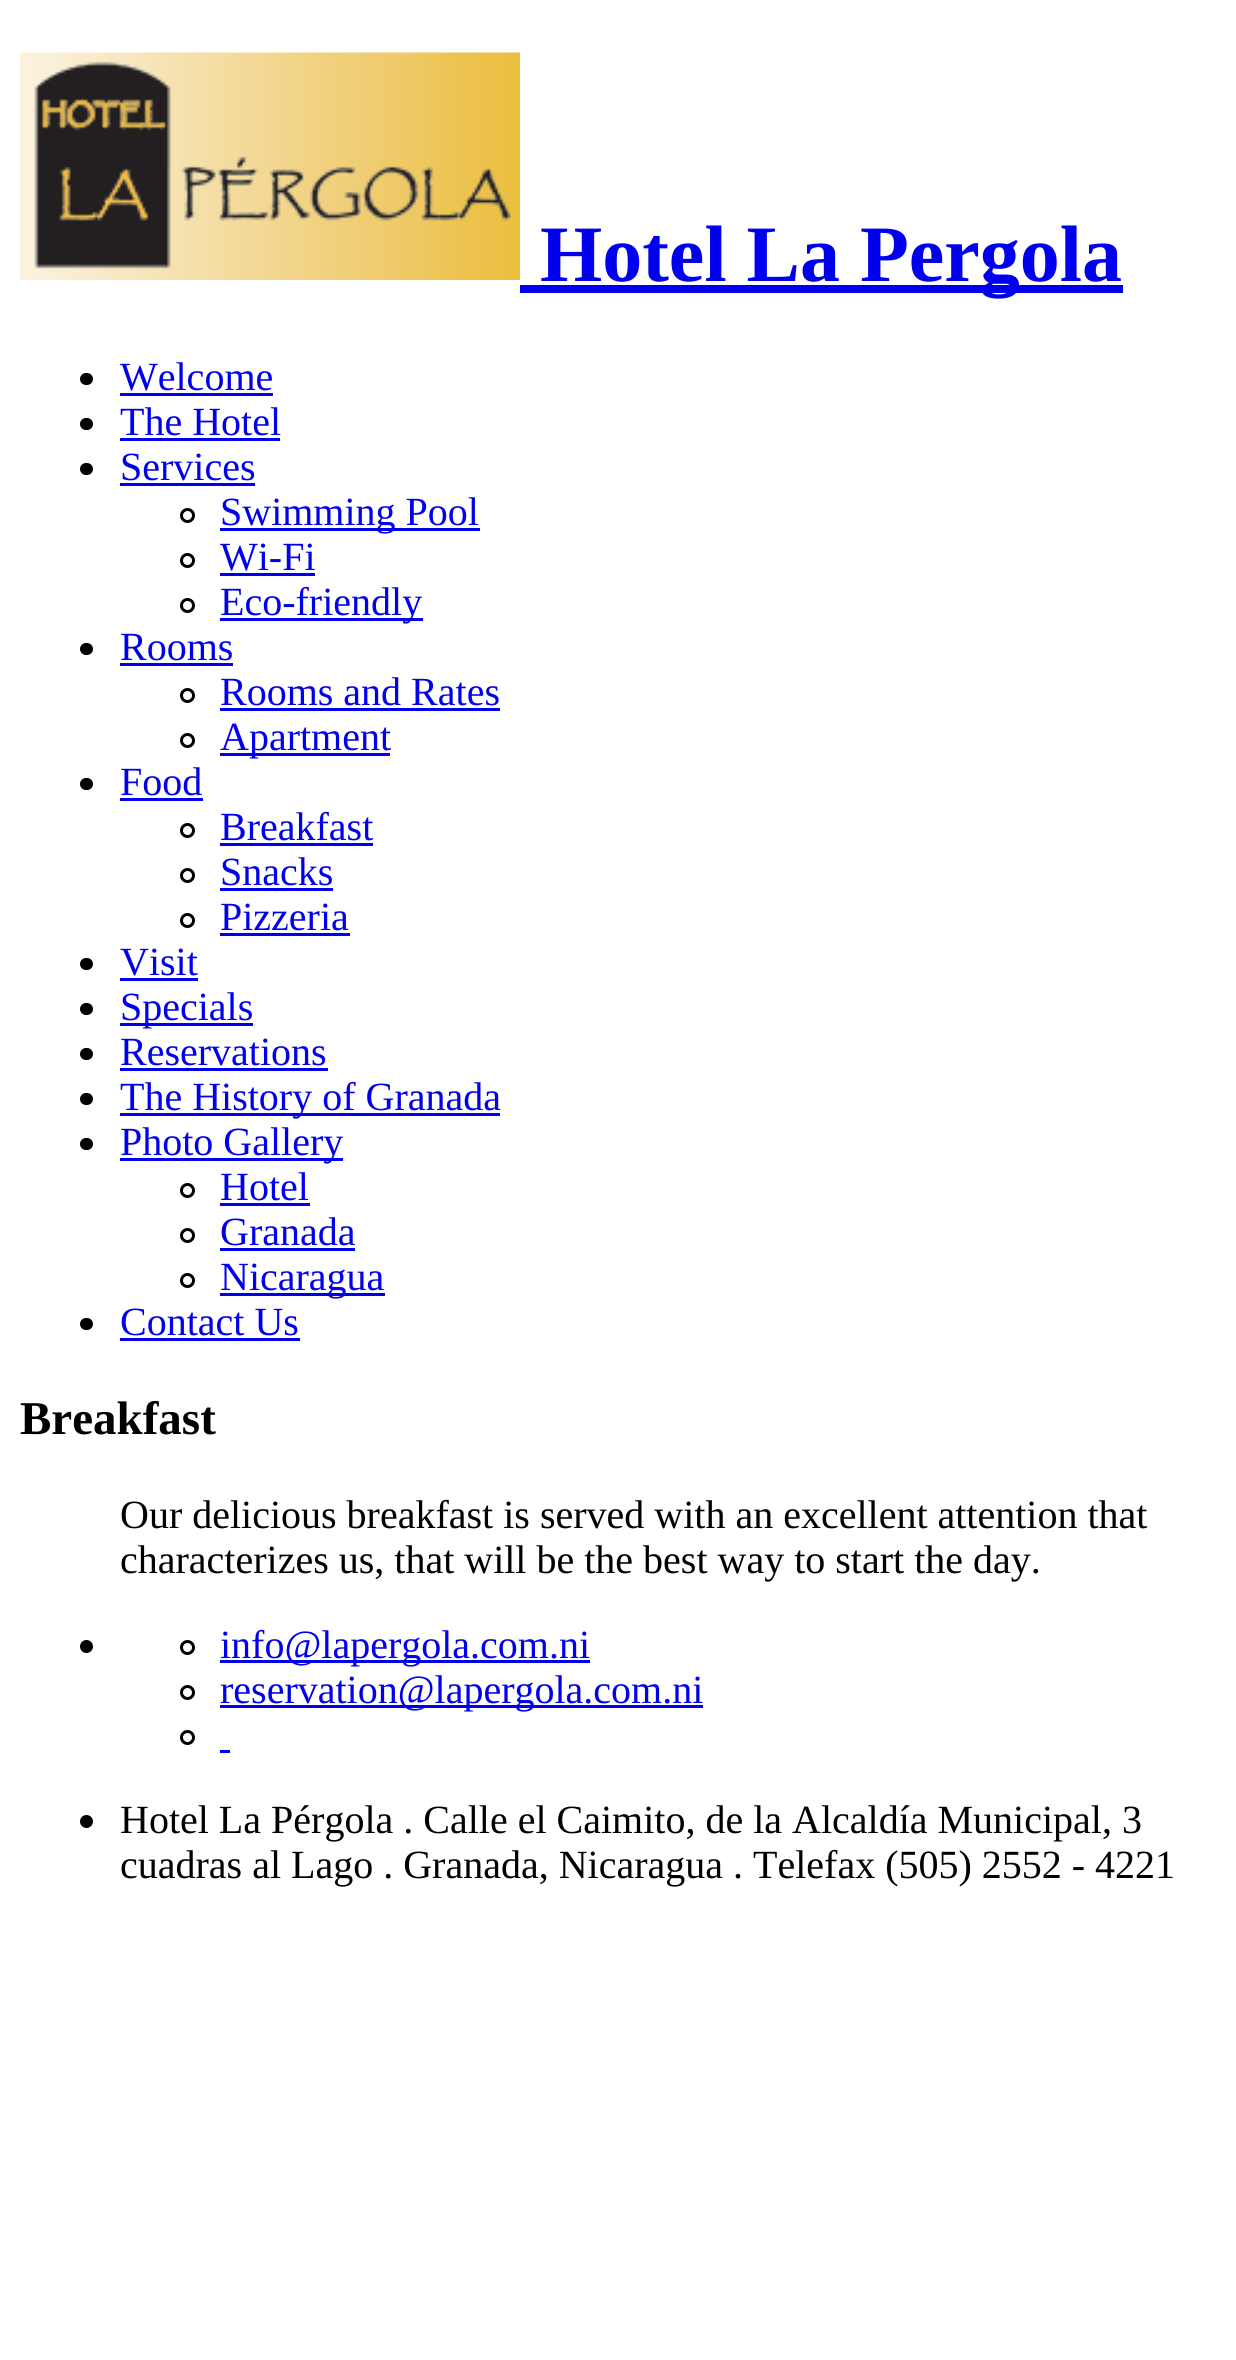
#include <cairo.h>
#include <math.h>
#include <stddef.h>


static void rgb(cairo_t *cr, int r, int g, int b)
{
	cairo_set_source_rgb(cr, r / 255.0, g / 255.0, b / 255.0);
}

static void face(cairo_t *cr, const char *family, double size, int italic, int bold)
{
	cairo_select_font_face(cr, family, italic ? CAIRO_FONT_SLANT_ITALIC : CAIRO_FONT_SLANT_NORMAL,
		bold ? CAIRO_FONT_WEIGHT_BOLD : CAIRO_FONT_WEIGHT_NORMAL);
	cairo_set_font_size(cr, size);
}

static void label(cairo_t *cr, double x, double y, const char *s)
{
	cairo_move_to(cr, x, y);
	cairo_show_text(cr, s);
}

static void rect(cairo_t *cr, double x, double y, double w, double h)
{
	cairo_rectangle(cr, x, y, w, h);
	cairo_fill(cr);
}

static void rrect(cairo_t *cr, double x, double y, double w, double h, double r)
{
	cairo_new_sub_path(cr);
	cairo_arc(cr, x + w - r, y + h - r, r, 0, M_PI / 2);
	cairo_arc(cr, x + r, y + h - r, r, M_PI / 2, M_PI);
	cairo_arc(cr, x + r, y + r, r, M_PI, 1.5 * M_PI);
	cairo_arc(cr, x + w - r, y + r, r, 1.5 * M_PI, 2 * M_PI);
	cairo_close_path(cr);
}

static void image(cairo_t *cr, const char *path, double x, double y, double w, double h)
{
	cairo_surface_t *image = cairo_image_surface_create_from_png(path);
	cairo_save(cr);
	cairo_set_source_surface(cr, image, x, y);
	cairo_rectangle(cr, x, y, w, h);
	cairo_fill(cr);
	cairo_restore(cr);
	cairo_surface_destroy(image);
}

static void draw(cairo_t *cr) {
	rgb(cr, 255, 255, 255);
	cairo_paint(cr);
	image(cr, "image0.png", 20, 52, 500, 228);
	rgb(cr, 0, 0, 238);
	rect(cr, 520, 285, 603, 8);
	face(cr, "Liberation Serif", 80, 0, 1);
	label(cr, 540, 281, "Hotel La Pergola");
	rgb(cr, 0, 0, 0);
	rrect(cr, 80, 373, 13, 12, 6);
	cairo_fill(cr);
	face(cr, "Liberation Serif", 40, 0, 0);
	rgb(cr, 0, 0, 238);
	label(cr, 120, 390, "Welcome");
	rect(cr, 120, 393, 153, 3);
	rgb(cr, 0, 0, 0);
	rrect(cr, 80, 418, 13, 12, 6);
	cairo_fill(cr);
	rgb(cr, 0, 0, 238);
	label(cr, 120, 435, "The Hotel");
	rect(cr, 120, 438, 160, 3);
	rgb(cr, 0, 0, 0);
	rrect(cr, 80, 463, 13, 12, 6);
	cairo_fill(cr);
	rgb(cr, 0, 0, 238);
	label(cr, 120, 480, "Services");
	rect(cr, 120, 483, 135, 3);
	cairo_new_path(cr);
	cairo_arc(cr, 187.5, 515.5, 6, 0, 2 * M_PI);
	rgb(cr, 0, 0, 0);
	cairo_set_line_width(cr, 3);
	cairo_stroke(cr);
	rgb(cr, 0, 0, 238);
	rect(cr, 220, 528, 260, 3);
	label(cr, 220, 525, "Swimming Pool");
	cairo_new_path(cr);
	cairo_arc(cr, 187.5, 560.5, 6, 0, 2 * M_PI);
	rgb(cr, 0, 0, 0);
	cairo_stroke(cr);
	rgb(cr, 0, 0, 238);
	label(cr, 220, 570, "Wi-Fi");
	rect(cr, 220, 573, 95, 3);
	cairo_new_path(cr);
	cairo_arc(cr, 187.5, 605.5, 6, 0, 2 * M_PI);
	rgb(cr, 0, 0, 0);
	cairo_stroke(cr);
	rgb(cr, 0, 0, 238);
	rect(cr, 220, 618, 203, 3);
	label(cr, 220, 615, "Eco-friendly");
	rgb(cr, 0, 0, 0);
	rrect(cr, 80, 643, 13, 12, 6);
	cairo_fill(cr);
	rgb(cr, 0, 0, 238);
	label(cr, 120, 660, "Rooms");
	rect(cr, 120, 663, 113, 3);
	cairo_new_path(cr);
	cairo_arc(cr, 187.5, 695.5, 6, 0, 2 * M_PI);
	rgb(cr, 0, 0, 0);
	cairo_stroke(cr);
	rgb(cr, 0, 0, 238);
	label(cr, 220, 705, "Rooms and Rates");
	rect(cr, 220, 708, 280, 3);
	cairo_new_path(cr);
	cairo_arc(cr, 187.5, 740.5, 6, 0, 2 * M_PI);
	rgb(cr, 0, 0, 0);
	cairo_stroke(cr);
	rgb(cr, 0, 0, 238);
	rect(cr, 220, 753, 170, 3);
	label(cr, 220, 750, "Apartment");
	rgb(cr, 0, 0, 0);
	rrect(cr, 80, 778, 13, 12, 6);
	cairo_fill(cr);
	rgb(cr, 0, 0, 238);
	label(cr, 120, 795, "Food");
	rect(cr, 120, 798, 83, 3);
	cairo_new_path(cr);
	cairo_arc(cr, 187.5, 830.5, 6, 0, 2 * M_PI);
	rgb(cr, 0, 0, 0);
	cairo_stroke(cr);
	rgb(cr, 0, 0, 238);
	label(cr, 220, 840, "Breakfast");
	rect(cr, 220, 843, 153, 3);
	cairo_new_path(cr);
	cairo_arc(cr, 187.5, 875.5, 6, 0, 2 * M_PI);
	rgb(cr, 0, 0, 0);
	cairo_stroke(cr);
	rgb(cr, 0, 0, 238);
	label(cr, 220, 885, "Snacks");
	rect(cr, 220, 888, 113, 3);
	cairo_new_path(cr);
	cairo_arc(cr, 187.5, 920.5, 6, 0, 2 * M_PI);
	rgb(cr, 0, 0, 0);
	cairo_stroke(cr);
	rgb(cr, 0, 0, 238);
	label(cr, 220, 930, "Pizzeria");
	rect(cr, 220, 933, 130, 3);
	rgb(cr, 0, 0, 0);
	rrect(cr, 80, 958, 13, 12, 6);
	cairo_fill(cr);
	rgb(cr, 0, 0, 238);
	label(cr, 120, 975, "Visit");
	rect(cr, 120, 978, 78, 3);
	rgb(cr, 0, 0, 0);
	rrect(cr, 80, 1003, 13, 12, 6);
	cairo_fill(cr);
	rgb(cr, 0, 0, 238);
	rect(cr, 120, 1023, 133, 3);
	label(cr, 120, 1020, "Specials");
	rgb(cr, 0, 0, 0);
	rrect(cr, 80, 1048, 13, 12, 6);
	cairo_fill(cr);
	rgb(cr, 0, 0, 238);
	label(cr, 120, 1065, "Reservations");
	rect(cr, 120, 1068, 208, 3);
	rgb(cr, 0, 0, 0);
	rrect(cr, 80, 1093, 13, 12, 6);
	cairo_fill(cr);
	rgb(cr, 0, 0, 238);
	rect(cr, 120, 1113, 380, 3);
	label(cr, 120, 1110, "The History of Granada");
	rgb(cr, 0, 0, 0);
	rrect(cr, 80, 1138, 13, 12, 6);
	cairo_fill(cr);
	rgb(cr, 0, 0, 238);
	rect(cr, 120, 1158, 223, 3);
	label(cr, 120, 1155, "Photo Gallery");
	cairo_new_path(cr);
	cairo_arc(cr, 187.5, 1190.5, 6, 0, 2 * M_PI);
	rgb(cr, 0, 0, 0);
	cairo_stroke(cr);
	rgb(cr, 0, 0, 238);
	label(cr, 220, 1200, "Hotel");
	rect(cr, 220, 1203, 90, 3);
	cairo_new_path(cr);
	cairo_arc(cr, 187.5, 1235.5, 6, 0, 2 * M_PI);
	rgb(cr, 0, 0, 0);
	cairo_stroke(cr);
	rgb(cr, 0, 0, 238);
	label(cr, 220, 1245, "Granada");
	rect(cr, 220, 1248, 135, 3);
	cairo_new_path(cr);
	cairo_arc(cr, 187.5, 1280.5, 6, 0, 2 * M_PI);
	rgb(cr, 0, 0, 0);
	cairo_stroke(cr);
	rgb(cr, 0, 0, 238);
	rect(cr, 220, 1293, 165, 3);
	label(cr, 220, 1290, "Nicaragua");
	rgb(cr, 0, 0, 0);
	rrect(cr, 80, 1318, 13, 12, 6);
	cairo_fill(cr);
	rgb(cr, 0, 0, 238);
	label(cr, 120, 1335, "Contact Us");
	rect(cr, 120, 1338, 180, 3);
	face(cr, "Liberation Serif", 47, 0, 1);
	rgb(cr, 0, 0, 0);
	label(cr, 20, 1434, "Breakfast");
	face(cr, "Liberation Serif", 40, 0, 0);
	label(cr, 120, 1528, "Our delicious breakfast is served with an excellent attention that");
	label(cr, 120, 1573, "characterizes us, that will be the best way to start the day.");
	cairo_new_path(cr);
	cairo_arc(cr, 86.5, 1646.5, 6.5, 0, 2 * M_PI);
	cairo_fill(cr);
	cairo_arc(cr, 187.5, 1647.5, 6, 0, 2 * M_PI);
	cairo_stroke(cr);
	rgb(cr, 0, 0, 238);
	rect(cr, 220, 1660, 370, 3);
	label(cr, 220, 1658, "info@lapergola.com.ni");
	cairo_new_path(cr);
	cairo_arc(cr, 187.5, 1692.5, 6, 0, 2 * M_PI);
	rgb(cr, 0, 0, 0);
	cairo_stroke(cr);
	rgb(cr, 0, 0, 238);
	rect(cr, 220, 1705, 483, 3);
	label(cr, 220, 1703, "reservation@lapergola.com.ni");
	cairo_new_path(cr);
	cairo_arc(cr, 187.5, 1737.5, 6, 0, 2 * M_PI);
	rgb(cr, 0, 0, 0);
	cairo_stroke(cr);
	rgb(cr, 0, 0, 238);
	rect(cr, 220, 1750, 10, 3);
	rgb(cr, 0, 0, 0);
	cairo_arc(cr, 86.5, 1821.5, 6.5, 0, 2 * M_PI);
	cairo_fill(cr);
	label(cr, 120, 1833, "Hotel La Pérgola . Calle el Caimito, de la Alcaldía Municipal, 3");
	label(cr, 120, 1878, "cuadras al Lago . Granada, Nicaragua . Telefax (505) 2552 - 4221");
}

int main(void) {
	cairo_surface_t *surface = cairo_image_surface_create(CAIRO_FORMAT_RGB24, 1236, 2360);
	cairo_t *cr = cairo_create(surface);
	cairo_font_options_t *options = cairo_font_options_create();
	cairo_font_options_set_hint_metrics(options, CAIRO_HINT_METRICS_OFF);
	cairo_font_options_set_hint_style(options, CAIRO_HINT_STYLE_NONE);
	cairo_set_font_options(cr, options);
	cairo_set_miter_limit(cr, 4);
	draw(cr);
	cairo_surface_write_to_png(surface, "render.png");
	cairo_font_options_destroy(options);
	cairo_destroy(cr);
	cairo_surface_destroy(surface);
	return 0;
}
